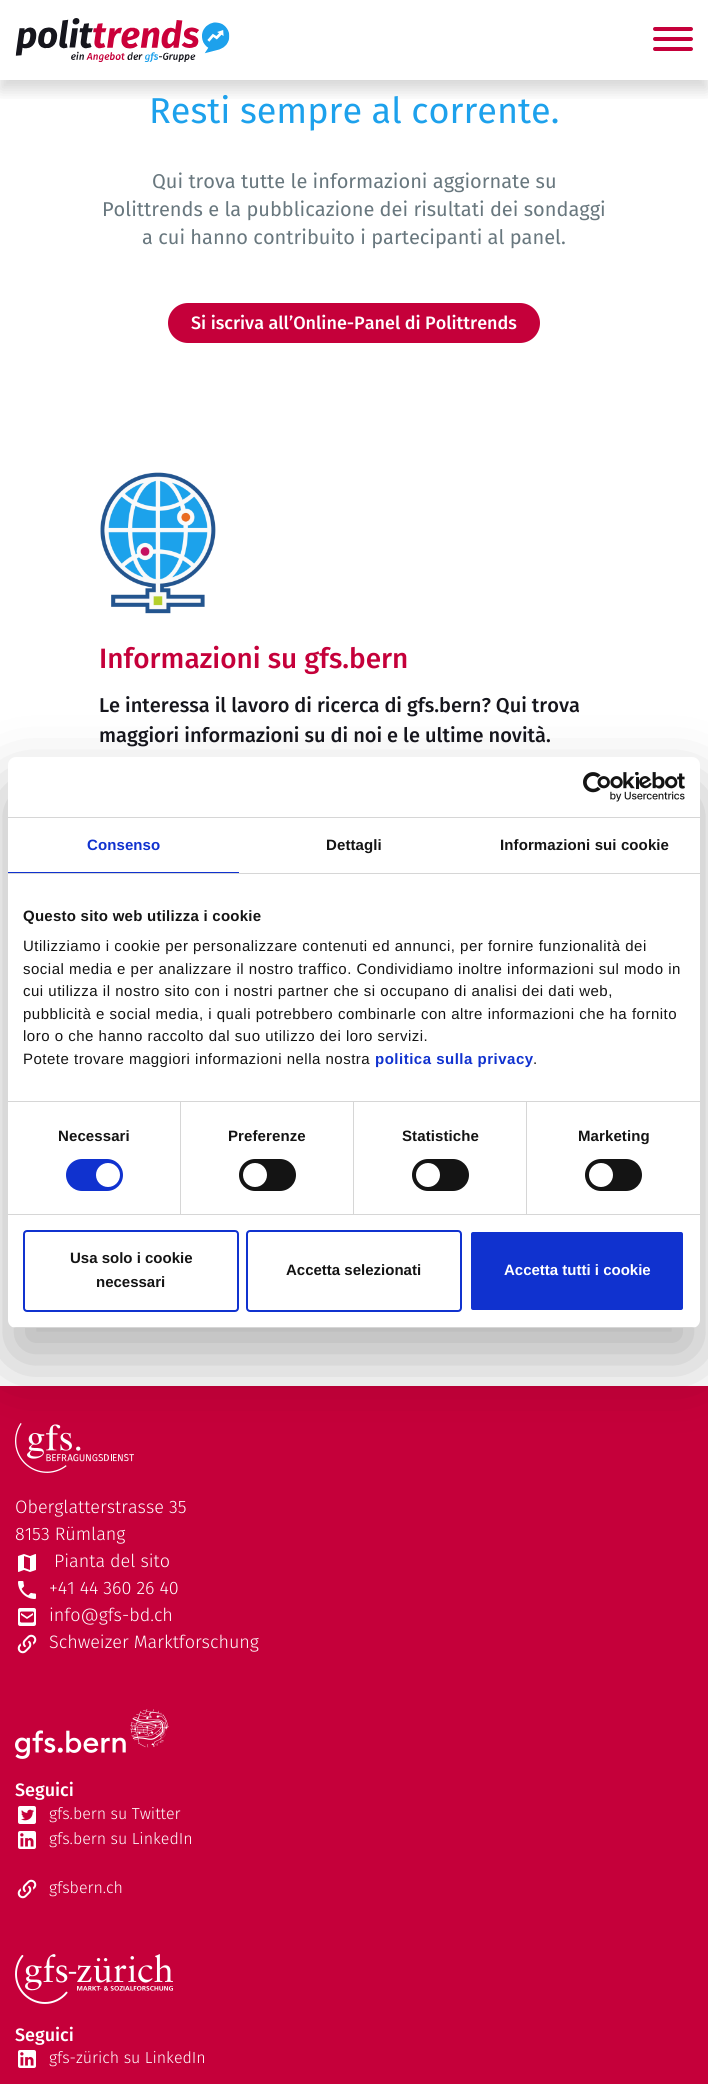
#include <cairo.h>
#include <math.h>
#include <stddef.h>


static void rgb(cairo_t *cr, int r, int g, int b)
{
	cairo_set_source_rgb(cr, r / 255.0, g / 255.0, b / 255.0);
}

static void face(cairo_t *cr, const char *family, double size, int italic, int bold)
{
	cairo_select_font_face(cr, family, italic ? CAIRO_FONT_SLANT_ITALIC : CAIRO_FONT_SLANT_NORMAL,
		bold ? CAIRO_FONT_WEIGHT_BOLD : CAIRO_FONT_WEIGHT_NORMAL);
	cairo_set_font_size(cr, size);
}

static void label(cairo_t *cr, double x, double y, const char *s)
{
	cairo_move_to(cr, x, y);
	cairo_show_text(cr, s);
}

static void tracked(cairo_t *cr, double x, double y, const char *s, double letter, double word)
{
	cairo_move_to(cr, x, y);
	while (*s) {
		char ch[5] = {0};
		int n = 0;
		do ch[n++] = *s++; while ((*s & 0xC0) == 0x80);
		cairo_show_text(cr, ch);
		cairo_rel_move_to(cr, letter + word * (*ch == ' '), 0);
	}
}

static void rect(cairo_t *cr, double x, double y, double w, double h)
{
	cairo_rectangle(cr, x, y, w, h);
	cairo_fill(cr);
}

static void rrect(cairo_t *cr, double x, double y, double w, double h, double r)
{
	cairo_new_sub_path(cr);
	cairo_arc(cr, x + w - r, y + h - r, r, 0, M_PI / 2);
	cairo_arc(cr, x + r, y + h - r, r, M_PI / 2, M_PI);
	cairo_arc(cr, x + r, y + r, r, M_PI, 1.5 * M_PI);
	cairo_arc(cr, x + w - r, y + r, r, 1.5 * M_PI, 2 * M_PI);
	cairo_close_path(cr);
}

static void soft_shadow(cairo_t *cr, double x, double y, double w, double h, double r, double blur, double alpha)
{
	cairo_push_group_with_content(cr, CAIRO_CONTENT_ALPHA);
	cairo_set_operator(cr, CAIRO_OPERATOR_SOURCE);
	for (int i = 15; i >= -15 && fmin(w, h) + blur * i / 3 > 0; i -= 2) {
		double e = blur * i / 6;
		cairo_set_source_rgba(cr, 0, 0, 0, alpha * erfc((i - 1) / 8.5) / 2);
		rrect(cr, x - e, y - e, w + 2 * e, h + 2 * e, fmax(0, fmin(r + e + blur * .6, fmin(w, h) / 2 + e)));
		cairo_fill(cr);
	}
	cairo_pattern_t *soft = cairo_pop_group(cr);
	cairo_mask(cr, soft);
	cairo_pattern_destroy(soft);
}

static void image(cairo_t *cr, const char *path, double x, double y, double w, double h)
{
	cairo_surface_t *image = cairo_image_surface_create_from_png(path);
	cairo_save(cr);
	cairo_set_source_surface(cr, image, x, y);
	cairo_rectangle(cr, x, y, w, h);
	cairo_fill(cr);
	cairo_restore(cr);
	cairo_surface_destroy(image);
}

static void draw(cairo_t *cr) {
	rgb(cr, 255, 255, 255);
	cairo_paint(cr);
	cairo_save(cr);
	cairo_rectangle(cr, 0, 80, 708, 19);
	cairo_clip(cr);
	rgb(cr, 0, 0, 0);
	soft_shadow(cr, 0, 10, 708, 80, 0, 7.5, 0.16);
	cairo_restore(cr);
	image(cr, "image0.png", 15, 18, 215, 44);
	rgb(cr, 197, 0, 58);
	rrect(cr, 653, 27, 40, 4, 2);
	cairo_fill(cr);
	rrect(cr, 653, 37, 40, 4, 2);
	cairo_fill(cr);
	rrect(cr, 653, 47, 40, 4, 2);
	cairo_fill(cr);
	face(cr, "Fira Sans", 36, 0, 0);
	rgb(cr, 29, 161, 236);
	label(cr, 149, 123, "Resti sempre al corrente.");
	face(cr, "Fira Sans", 20, 0, 0);
	rgb(cr, 104, 119, 126);
	label(cr, 152, 188, "Qui trova tutte le informazioni aggiornate su");
	label(cr, 102, 216, "Polittrends e la pubblicazione dei risultati dei sondaggi");
	label(cr, 142, 244, "a cui hanno contribuito i partecipanti al panel.");
	rgb(cr, 197, 0, 58);
	rrect(cr, 169, 304, 370, 38, 19);
	cairo_fill_preserve(cr);
	cairo_stroke(cr);
	face(cr, "Fira Sans Medium", 18, 0, 0);
	rgb(cr, 255, 255, 255);
	label(cr, 191, 329, "Si iscriva all’Online-Panel di Polittrends");
	image(cr, "image1.png", 100, 472, 116, 142);
	face(cr, "Fira Sans Medium", 28, 0, 0);
	rgb(cr, 197, 0, 58);
	label(cr, 99, 668, "Informazioni su gfs.bern");
	face(cr, "Fira Sans Medium", 20, 0, 0);
	rgb(cr, 22, 22, 29);
	label(cr, 99, 712, "Le interessa il lavoro di ricerca di gfs.bern? Qui trova");
	label(cr, 99, 742, "maggiori informazioni su di noi e le ultime novità.");
	rgb(cr, 197, 0, 58);
	rect(cr, 0, 1386, 708, 698);
	image(cr, "image3.png", 15, 1423, 119, 50);
	rgb(cr, 0, 0, 0);
	soft_shadow(cr, 8, 789, 692, 571, 8, 34, 0.3);
	rgb(cr, 255, 255, 255);
	rrect(cr, 8, 757, 692, 571, 8);
	cairo_fill(cr);
	rgb(cr, 214, 214, 214);
	rect(cr, 8, 817, 692, 1);
	image(cr, "image2.png", 583, 772, 102, 30);
	rect(cr, 8, 873, 692, 1);
	rgb(cr, 16, 50, 207);
	rect(cr, 8, 872, 231, 1);
	face(cr, "Liberation Sans", 15, 0, 1);
	tracked(cr, 87, 850, "Consenso", 0.1, 0);
	rgb(cr, 20, 20, 20);
	tracked(cr, 326, 850, "Dettagli", 0.1, 0);
	tracked(cr, 500, 850, "Informazioni sui cookie", 0.1, 0);
	rgb(cr, 214, 214, 214);
	rect(cr, 8, 1101, 692, 1);
	rgb(cr, 20, 20, 20);
	tracked(cr, 23, 921, "Questo sito web utilizza i cookie", 0.25, 0);
	face(cr, "Liberation Sans", 15, 0, 0);
	tracked(cr, 23, 951, "Utilizziamo i cookie per personalizzare contenuti ed annunci, per fornire funzionalità dei", 0.5, 0);
	tracked(cr, 23, 974, "social media e per analizzare il nostro traffico. Condividiamo inoltre informazioni sul modo in", 0.5, 0);
	tracked(cr, 23, 996, "cui utilizza il nostro sito con i nostri partner che si occupano di analisi dei dati web,", 0.5, 0);
	tracked(cr, 23, 1019, "pubblicità e social media, i quali potrebbero combinarle con altre informazioni che ha fornito", 0.5, 0);
	tracked(cr, 23, 1041, "loro o che hanno raccolto dal suo utilizzo dei loro servizi.", 0.5, 0);
	tracked(cr, 23, 1064, "Potete trovare maggiori informazioni nella nostra", 0.5, 0);
	face(cr, "Liberation Sans", 15, 0, 1);
	rgb(cr, 16, 50, 207);
	tracked(cr, 375, 1064, "politica sulla privacy", 0.5, 0);
	face(cr, "Liberation Sans", 15, 0, 0);
	rgb(cr, 20, 20, 20);
	tracked(cr, 533, 1064, ".", 0.5, 0);
	rgb(cr, 214, 214, 214);
	rect(cr, 8, 1214, 692, 1);
	rect(cr, 180, 1102, 1, 112);
	face(cr, "Liberation Sans", 15, 0, 1);
	rgb(cr, 20, 20, 20);
	tracked(cr, 58, 1141, "Necessari", 0.1, 0);
	rgb(cr, 16, 50, 207);
	rrect(cr, 66, 1159, 57, 32, 16);
	cairo_fill(cr);
	rgb(cr, 255, 255, 255);
	cairo_arc(cr, 108, 1175, 12, 0, 2 * M_PI);
	cairo_fill(cr);
	rgb(cr, 214, 214, 214);
	rect(cr, 353, 1102, 1, 112);
	rgb(cr, 20, 20, 20);
	tracked(cr, 228, 1141, "Preferenze", 0.1, 0);
	rrect(cr, 239, 1159, 57, 32, 16);
	cairo_fill(cr);
	rgb(cr, 255, 255, 255);
	cairo_arc(cr, 255, 1175, 12, 0, 2 * M_PI);
	cairo_fill(cr);
	rgb(cr, 214, 214, 214);
	rect(cr, 526, 1102, 1, 112);
	rgb(cr, 20, 20, 20);
	tracked(cr, 402, 1141, "Statistiche", 0.1, 0);
	rrect(cr, 412, 1159, 57, 32, 16);
	cairo_fill(cr);
	rgb(cr, 255, 255, 255);
	cairo_arc(cr, 428, 1175, 12, 0, 2 * M_PI);
	cairo_fill(cr);
	rgb(cr, 20, 20, 20);
	tracked(cr, 578, 1141, "Marketing", 0.1, 0);
	rrect(cr, 585, 1159, 57, 32, 16);
	cairo_fill(cr);
	rgb(cr, 255, 255, 255);
	cairo_arc(cr, 601, 1175, 12, 0, 2 * M_PI);
	cairo_fill(cr);
	cairo_save(cr);
	rrect(cr, 8, 757, 692, 571, 8);
	cairo_clip(cr);
	rgb(cr, 214, 214, 214);
	rect(cr, 8, 1327, 692, 1);
	cairo_restore(cr);
	rrect(cr, 24, 1231, 214, 80, 3);
	rgb(cr, 16, 50, 207);
	cairo_stroke(cr);
	rgb(cr, 20, 20, 20);
	label(cr, 70, 1263, "Usa solo i cookie");
	label(cr, 96, 1287, "necessari");
	rrect(cr, 247, 1231, 214, 80, 3);
	rgb(cr, 16, 50, 207);
	cairo_stroke(cr);
	rgb(cr, 20, 20, 20);
	label(cr, 286, 1275, "Accetta selezionati");
	rgb(cr, 16, 50, 207);
	rrect(cr, 470, 1231, 214, 80, 3);
	cairo_fill_preserve(cr);
	rgb(cr, 255, 255, 255);
	cairo_stroke(cr);
	label(cr, 504, 1275, "Accetta tutti i cookie");
	face(cr, "Fira Sans Light", 18, 0, 0);
	label(cr, 15, 1513, "Oberglatterstrasse 35");
	label(cr, 15, 1540, "8153 Rümlang");
	image(cr, "image4.png", 18, 1554, 18, 18);
	label(cr, 54, 1567, "Pianta del sito");
	image(cr, "image5.png", 18, 1581, 18, 18);
	label(cr, 49, 1594, "+41 44 360 26 40");
	image(cr, "image6.png", 18, 1608, 18, 18);
	label(cr, 49, 1621, "info@gfs-bd.ch");
	image(cr, "image7.png", 17, 1634, 20, 20);
	label(cr, 49, 1648, "Schweizer Marktforschung");
	image(cr, "image8.png", 15, 1709, 154, 50);
	face(cr, "Fira Sans Medium", 18, 0, 0);
	label(cr, 15, 1796, "Seguici");
	image(cr, "image9.png", 18, 1806, 18, 18);
	face(cr, "Fira Sans Light", 16, 0, 0);
	label(cr, 49, 1819, "gfs.bern su Twitter");
	image(cr, "image10.png", 18, 1831, 18, 18);
	label(cr, 49, 1844, "gfs.bern su LinkedIn");
	image(cr, "image7.png", 17, 1879, 20, 20);
	label(cr, 49, 1893, "gfsbern.ch");
	image(cr, "image11.png", 15, 1954, 158, 50);
	face(cr, "Fira Sans Medium", 18, 0, 0);
	label(cr, 15, 2041, "Seguici");
	image(cr, "image10.png", 18, 2050, 18, 18);
	face(cr, "Fira Sans Light", 16, 0, 0);
	label(cr, 49, 2063, "gfs-zürich su LinkedIn");
}

int main(void) {
	cairo_surface_t *surface = cairo_image_surface_create(CAIRO_FORMAT_RGB24, 708, 2084);
	cairo_t *cr = cairo_create(surface);
	cairo_font_options_t *options = cairo_font_options_create();
	cairo_font_options_set_hint_metrics(options, CAIRO_HINT_METRICS_OFF);
	cairo_font_options_set_hint_style(options, CAIRO_HINT_STYLE_NONE);
	cairo_set_font_options(cr, options);
	cairo_set_miter_limit(cr, 4);
	draw(cr);
	cairo_surface_write_to_png(surface, "render.png");
	cairo_font_options_destroy(options);
	cairo_destroy(cr);
	cairo_surface_destroy(surface);
	return 0;
}
